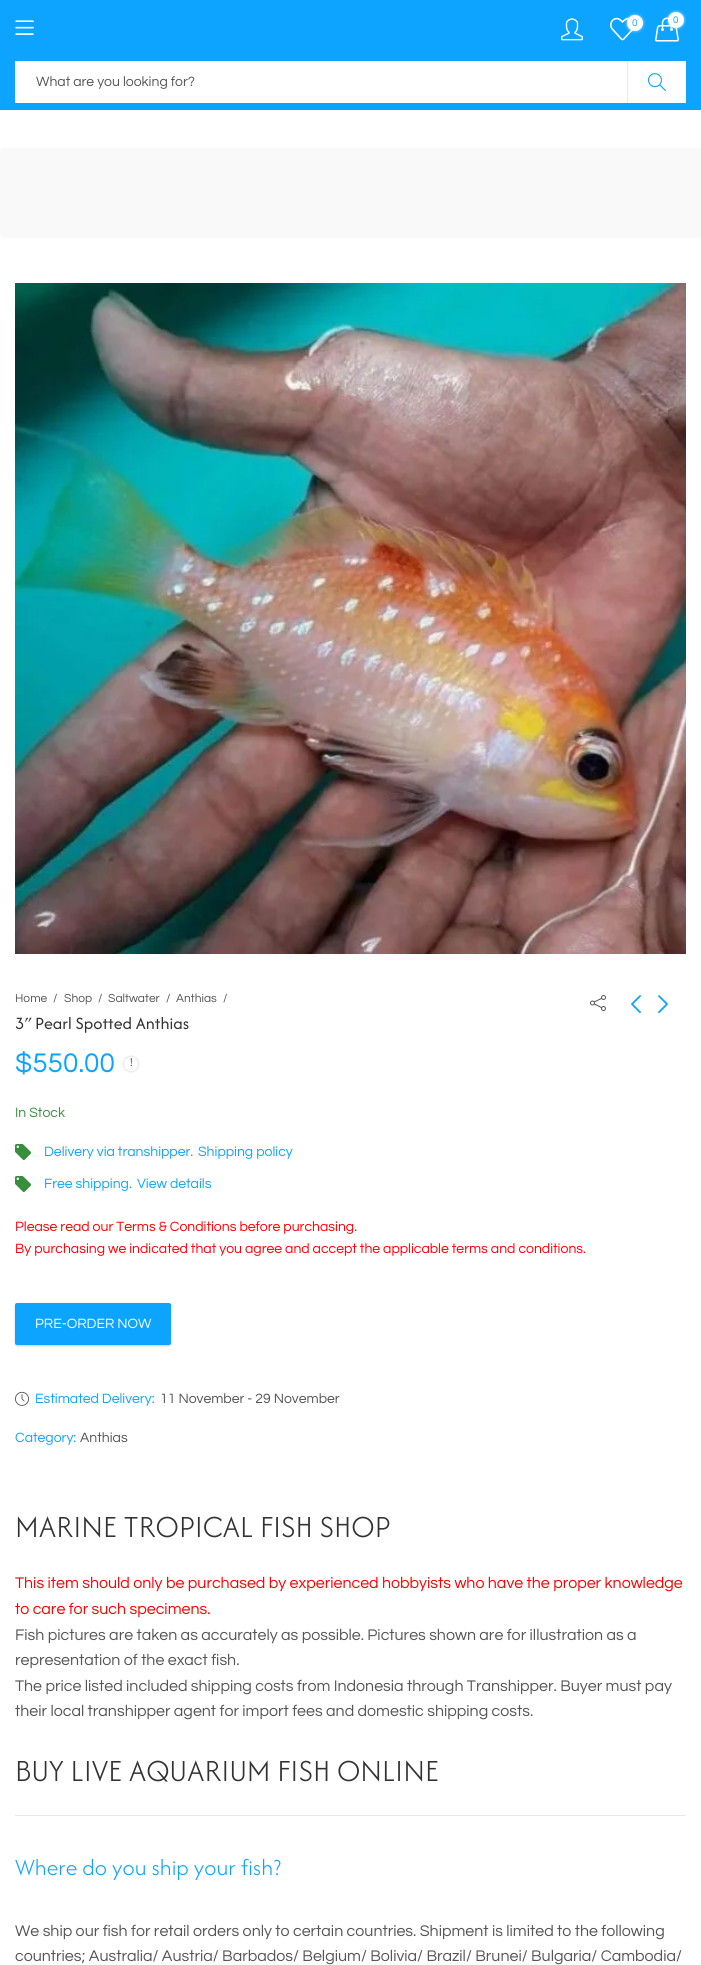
#include <cairo.h>
#include <math.h>
#include <stddef.h>


static void rgb(cairo_t *cr, int r, int g, int b)
{
	cairo_set_source_rgb(cr, r / 255.0, g / 255.0, b / 255.0);
}

static void face(cairo_t *cr, const char *family, double size, int italic, int bold)
{
	cairo_select_font_face(cr, family, italic ? CAIRO_FONT_SLANT_ITALIC : CAIRO_FONT_SLANT_NORMAL,
		bold ? CAIRO_FONT_WEIGHT_BOLD : CAIRO_FONT_WEIGHT_NORMAL);
	cairo_set_font_size(cr, size);
}

static void label(cairo_t *cr, double x, double y, const char *s)
{
	cairo_move_to(cr, x, y);
	cairo_show_text(cr, s);
}

static void rect(cairo_t *cr, double x, double y, double w, double h)
{
	cairo_rectangle(cr, x, y, w, h);
	cairo_fill(cr);
}

static void rrect(cairo_t *cr, double x, double y, double w, double h, double r)
{
	cairo_new_sub_path(cr);
	cairo_arc(cr, x + w - r, y + h - r, r, 0, M_PI / 2);
	cairo_arc(cr, x + r, y + h - r, r, M_PI / 2, M_PI);
	cairo_arc(cr, x + r, y + r, r, M_PI, 1.5 * M_PI);
	cairo_arc(cr, x + w - r, y + r, r, 1.5 * M_PI, 2 * M_PI);
	cairo_close_path(cr);
}

static void soft_shadow(cairo_t *cr, double x, double y, double w, double h, double r, double blur, double alpha)
{
	cairo_push_group_with_content(cr, CAIRO_CONTENT_ALPHA);
	cairo_set_operator(cr, CAIRO_OPERATOR_SOURCE);
	for (int i = 15; i >= -15 && fmin(w, h) + blur * i / 3 > 0; i -= 2) {
		double e = blur * i / 6;
		cairo_set_source_rgba(cr, 0, 0, 0, alpha * erfc((i - 1) / 8.5) / 2);
		rrect(cr, x - e, y - e, w + 2 * e, h + 2 * e, fmax(0, fmin(r + e + blur * .6, fmin(w, h) / 2 + e)));
		cairo_fill(cr);
	}
	cairo_pattern_t *soft = cairo_pop_group(cr);
	cairo_mask(cr, soft);
	cairo_pattern_destroy(soft);
}

static void image(cairo_t *cr, const char *path, double x, double y, double w, double h)
{
	cairo_surface_t *image = cairo_image_surface_create_from_png(path);
	cairo_save(cr);
	cairo_set_source_surface(cr, image, x, y);
	cairo_rectangle(cr, x, y, w, h);
	cairo_fill(cr);
	cairo_restore(cr);
	cairo_surface_destroy(image);
}

static void draw(cairo_t *cr) {
	rgb(cr, 255, 255, 255);
	cairo_paint(cr);
	rgb(cr, 12, 164, 255);
	rect(cr, 0, 0, 701, 110);
	image(cr, "image0.png", 15, 20, 19, 15);
	image(cr, "image1.png", 561, 18, 22, 23);
	image(cr, "image2.png", 610, 17, 23, 24);
	rgb(cr, 255, 255, 255);
	soft_shadow(cr, 627, 15, 16, 16, 8, 1.5, 0.7);
	rgb(cr, 255, 255, 255);
	cairo_arc(cr, 635, 23, 8, 0, 2 * M_PI);
	cairo_fill(cr);
	face(cr, "Questrial", 10, 0, 0);
	rgb(cr, 12, 164, 255);
	label(cr, 632, 26, "0");
	image(cr, "image3.png", 655, 17, 24, 25);
	rgb(cr, 255, 255, 255);
	soft_shadow(cr, 668, 12, 16, 16, 8, 1.5, 0.7);
	rgb(cr, 255, 255, 255);
	cairo_arc(cr, 676, 20, 8, 0, 2 * M_PI);
	cairo_fill(cr);
	rgb(cr, 12, 164, 255);
	label(cr, 673, 23, "0");
	rgb(cr, 255, 255, 255);
	rect(cr, 15, 61, 612, 42);
	rgb(cr, 233, 233, 233);
	rect(cr, 627, 61, 1, 42);
	face(cr, "Questrial", 14, 0, 0);
	rgb(cr, 85, 85, 85);
	label(cr, 36, 86, "What are you looking for?");
	rgb(cr, 255, 255, 255);
	rect(cr, 628, 61, 58, 42);
	image(cr, "image4.png", 647, 73, 19, 19);
	rgb(cr, 249, 249, 249);
	cairo_new_path(cr);
	cairo_move_to(cr, 4, 148);
	cairo_line_to(cr, 701, 148);
	cairo_line_to(cr, 701, 238);
	cairo_line_to(cr, 4, 238);
	cairo_curve_to(cr, 2, 238, 0, 236, 0, 234);
	cairo_line_to(cr, 0, 152);
	cairo_curve_to(cr, 0, 150, 2, 148, 4, 148);
	cairo_close_path(cr);
	cairo_fill(cr);
	image(cr, "image5.png", 15, 283, 671, 671);
	face(cr, "Questrial", 12, 0, 0);
	rgb(cr, 85, 85, 85);
	label(cr, 15, 1002, "Home");
	label(cr, 53, 1002, "/");
	label(cr, 64, 1002, "Shop");
	label(cr, 98, 1002, "/");
	label(cr, 108, 1002, "Saltwater");
	label(cr, 166, 1002, "/");
	label(cr, 176, 1002, "Anthias");
	label(cr, 223, 1002, "/");
	image(cr, "image6.png", 590, 995, 16, 16);
	image(cr, "image7.png", 631, 995, 10, 19);
	image(cr, "image8.png", 658, 995, 10, 19);
	face(cr, "Afacad Flux", 18, 0, 0);
	rgb(cr, 51, 51, 51);
	label(cr, 15, 1029, "3″ Pearl Spotted Anthias");
	face(cr, "Questrial", 28, 0, 0);
	rgb(cr, 12, 164, 255);
	label(cr, 15, 1072, "$550.00");
	cairo_save(cr);
	cairo_set_fill_rule(cr, CAIRO_FILL_RULE_EVEN_ODD);
	cairo_new_path(cr);
	cairo_move_to(cr, 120, 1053);
	cairo_line_to(cr, 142, 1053);
	cairo_line_to(cr, 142, 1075);
	cairo_line_to(cr, 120, 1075);
	cairo_close_path(cr);
	cairo_move_to(cr, 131, 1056);
	cairo_curve_to(cr, 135.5, 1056, 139, 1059.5, 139, 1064);
	cairo_curve_to(cr, 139, 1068.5, 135.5, 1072, 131, 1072);
	cairo_curve_to(cr, 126.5, 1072, 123, 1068.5, 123, 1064);
	cairo_curve_to(cr, 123, 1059.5, 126.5, 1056, 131, 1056);
	cairo_close_path(cr);
	cairo_clip(cr);
	rgb(cr, 0, 0, 0);
	soft_shadow(cr, 123, 1056, 16, 16, 8, 0.5, 0.2);
	cairo_restore(cr);
	cairo_arc(cr, 131, 1064, 7.5, 0, 2 * M_PI);
	rgb(cr, 233, 233, 233);
	cairo_set_line_width(cr, 1);
	cairo_stroke(cr);
	face(cr, "Questrial", 12, 0, 0);
	rgb(cr, 85, 85, 85);
	label(cr, 130, 1066, "!");
	face(cr, "Questrial", 14, 0, 0);
	rgb(cr, 56, 142, 60);
	label(cr, 15, 1117, "In Stock");
	image(cr, "image9.png", 15, 1144, 16, 16);
	rgb(cr, 12, 164, 255);
	label(cr, 44, 1156, "Delivery via transhipper.");
	label(cr, 198, 1156, "Shipping policy");
	image(cr, "image9.png", 15, 1176, 16, 16);
	label(cr, 44, 1188, "Free shipping.");
	label(cr, 137, 1188, "View details");
	rgb(cr, 255, 0, 0);
	label(cr, 15, 1231, "Please read our Terms & Conditions before purchasing.");
	label(cr, 15, 1253, "By purchasing we indicated that you agree and accept the applicable terms and conditions.");
	rgb(cr, 0, 0, 0);
	soft_shadow(cr, 15, 1304, 156, 42, 2, 1, 0.2);
	rgb(cr, 12, 164, 255);
	rrect(cr, 15, 1303, 156, 42, 2);
	cairo_fill(cr);
	rgb(cr, 255, 255, 255);
	label(cr, 35, 1328, "PRE-ORDER NOW");
	image(cr, "image10.png", 15, 1391, 14, 15);
	rgb(cr, 12, 164, 255);
	label(cr, 35, 1403, "Estimated Delivery:");
	rgb(cr, 85, 85, 85);
	label(cr, 160, 1403, "11 November - 29 November");
	rgb(cr, 12, 164, 255);
	label(cr, 15, 1442, "Category:");
	rgb(cr, 85, 85, 85);
	label(cr, 80, 1442, "Anthias");
	face(cr, "Afacad Flux Light", 32, 0, 0);
	rgb(cr, 51, 51, 51);
	label(cr, 15, 1537, "MARINE TROPICAL FISH SHOP");
	face(cr, "Questrial", 16, 0, 0);
	rgb(cr, 255, 0, 0);
	label(cr, 15, 1588, "This item should only be purchased by experienced hobbyists who have the proper knowledge");
	label(cr, 15, 1614, "to care for such specimens.");
	rgb(cr, 85, 85, 85);
	label(cr, 15, 1640, "Fish pictures are taken as accurately as possible. Pictures shown are for illustration as a");
	label(cr, 15, 1665, "representation of the exact fish.");
	label(cr, 15, 1691, "The price listed included shipping costs from Indonesia through Transhipper. Buyer must pay");
	label(cr, 15, 1716, "their local transhipper agent for import fees and domestic shipping costs.");
	face(cr, "Afacad Flux Light", 32, 0, 0);
	rgb(cr, 51, 51, 51);
	label(cr, 15, 1781, "BUY LIVE AQUARIUM FISH ONLINE");
	rgb(cr, 233, 233, 233);
	rect(cr, 15, 1815, 671, 1);
	face(cr, "Afacad Flux Light", 24, 0, 0);
	rgb(cr, 12, 164, 255);
	label(cr, 15, 1875, "Where do you ship your fish?");
	face(cr, "Questrial", 16, 0, 0);
	rgb(cr, 85, 85, 85);
	label(cr, 15, 1936, "We ship our fish for retail orders only to certain countries. Shipment is limited to the following");
	label(cr, 15, 1961, "countries; Australia/ Austria/ Barbados/ Belgium/ Bolivia/ Brazil/ Brunei/ Bulgaria/ Cambodia/");
}

int main(void) {
	cairo_surface_t *surface = cairo_image_surface_create(CAIRO_FORMAT_RGB24, 701, 1965);
	cairo_t *cr = cairo_create(surface);
	cairo_font_options_t *options = cairo_font_options_create();
	cairo_font_options_set_hint_metrics(options, CAIRO_HINT_METRICS_OFF);
	cairo_font_options_set_hint_style(options, CAIRO_HINT_STYLE_NONE);
	cairo_set_font_options(cr, options);
	cairo_set_miter_limit(cr, 4);
	draw(cr);
	cairo_surface_write_to_png(surface, "render.png");
	cairo_font_options_destroy(options);
	cairo_destroy(cr);
	cairo_surface_destroy(surface);
	return 0;
}
